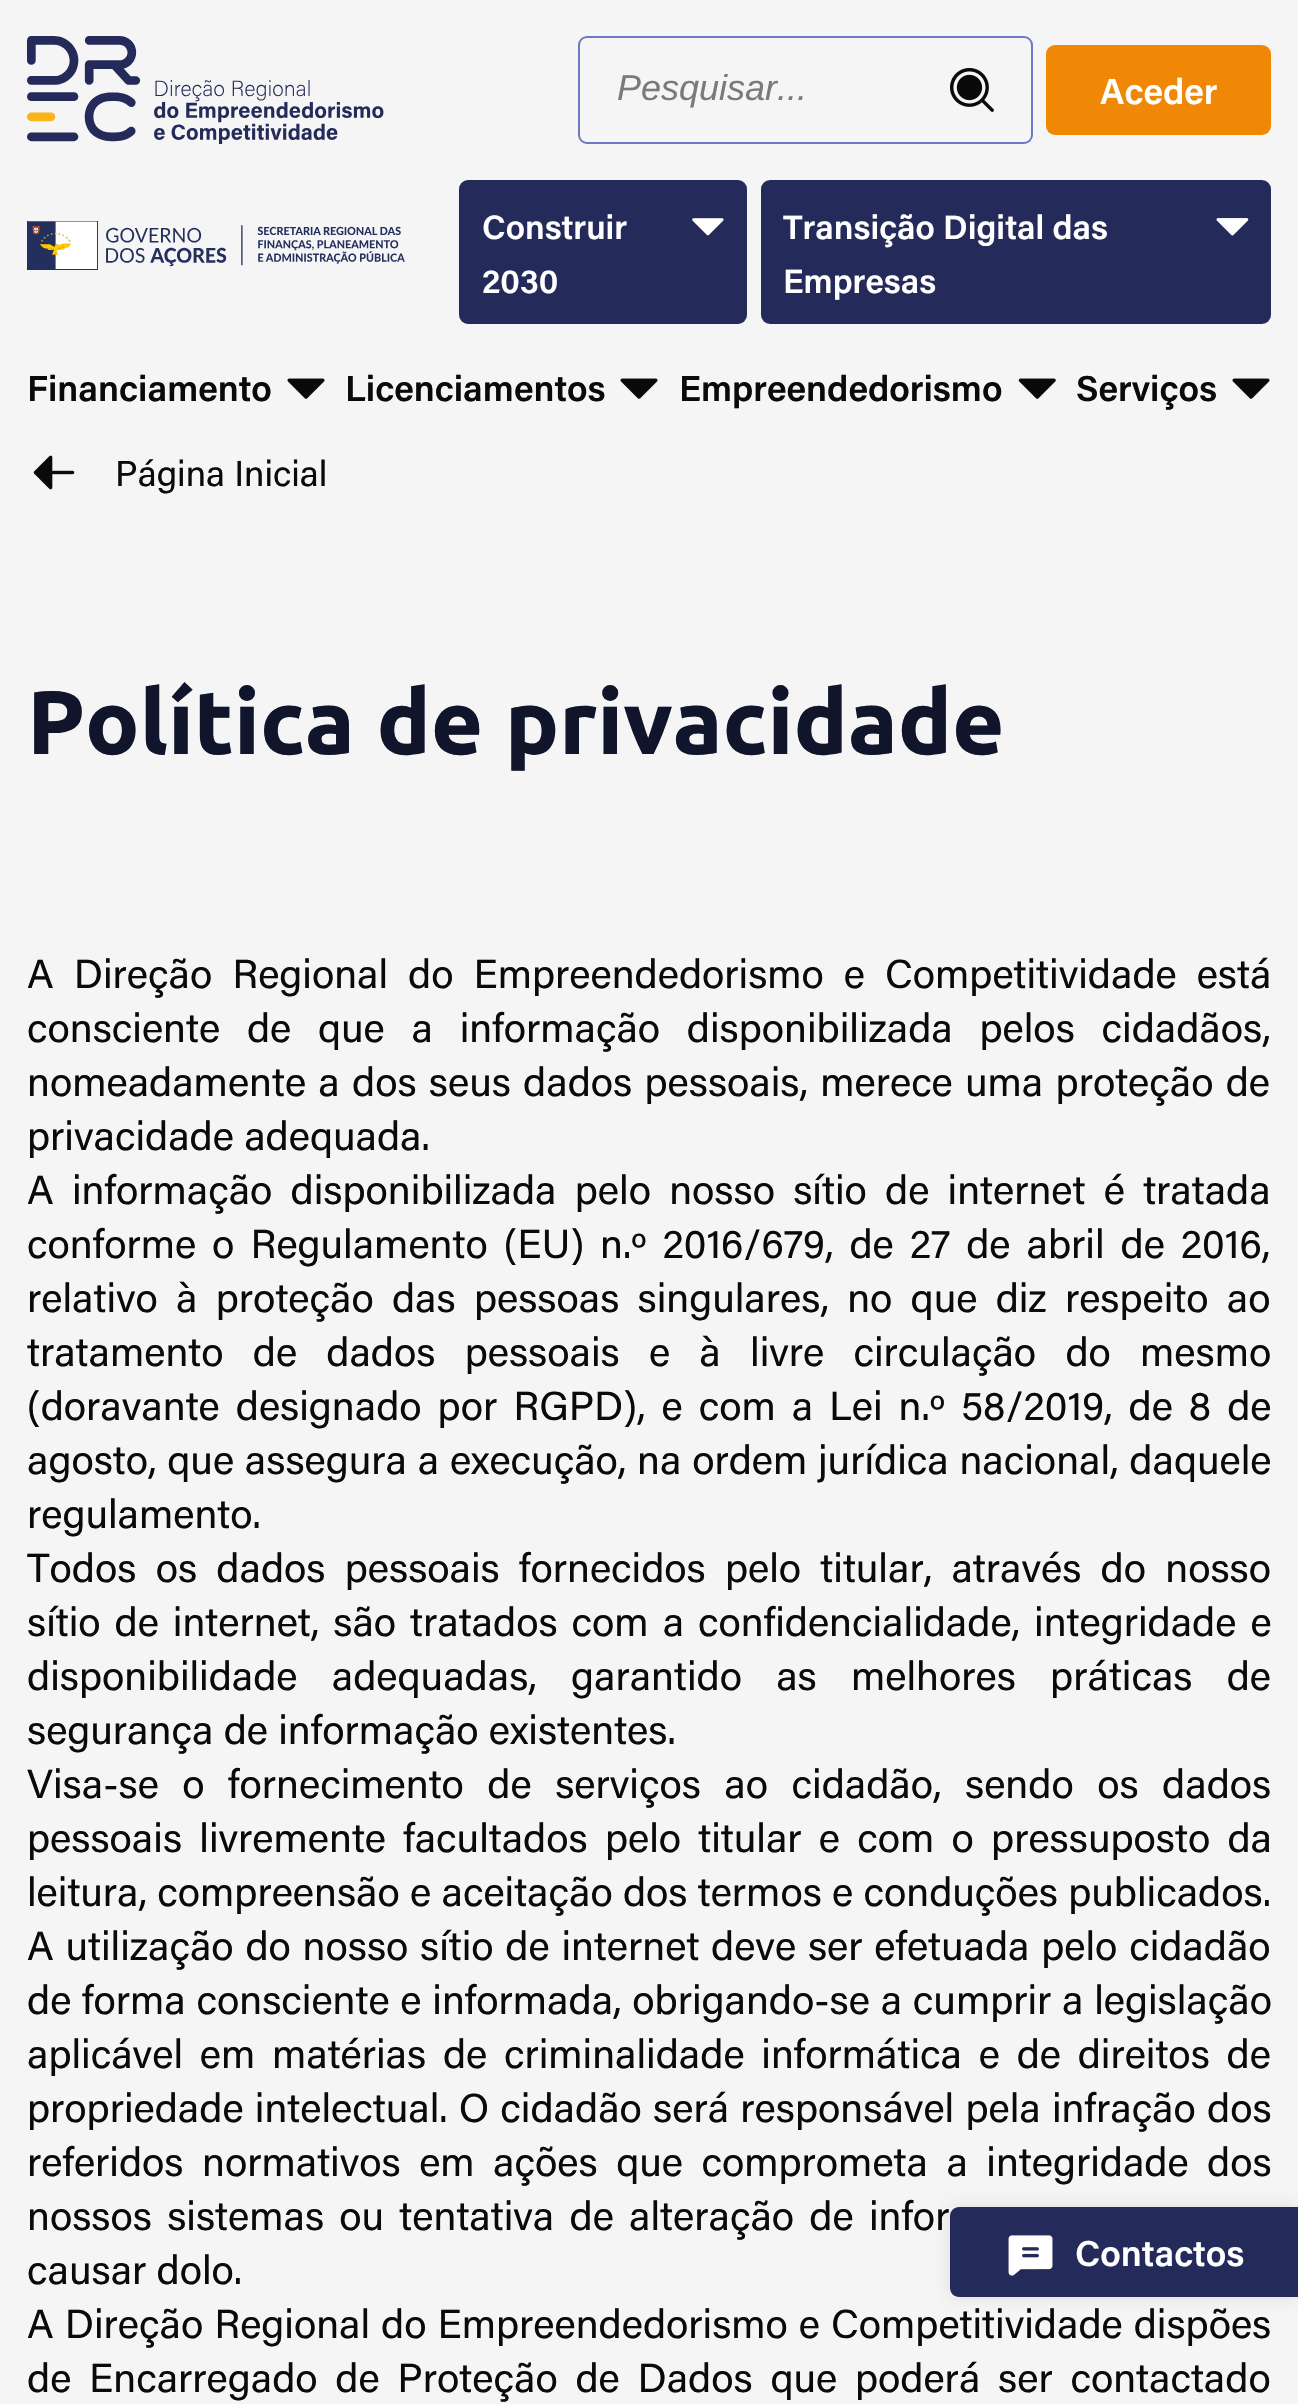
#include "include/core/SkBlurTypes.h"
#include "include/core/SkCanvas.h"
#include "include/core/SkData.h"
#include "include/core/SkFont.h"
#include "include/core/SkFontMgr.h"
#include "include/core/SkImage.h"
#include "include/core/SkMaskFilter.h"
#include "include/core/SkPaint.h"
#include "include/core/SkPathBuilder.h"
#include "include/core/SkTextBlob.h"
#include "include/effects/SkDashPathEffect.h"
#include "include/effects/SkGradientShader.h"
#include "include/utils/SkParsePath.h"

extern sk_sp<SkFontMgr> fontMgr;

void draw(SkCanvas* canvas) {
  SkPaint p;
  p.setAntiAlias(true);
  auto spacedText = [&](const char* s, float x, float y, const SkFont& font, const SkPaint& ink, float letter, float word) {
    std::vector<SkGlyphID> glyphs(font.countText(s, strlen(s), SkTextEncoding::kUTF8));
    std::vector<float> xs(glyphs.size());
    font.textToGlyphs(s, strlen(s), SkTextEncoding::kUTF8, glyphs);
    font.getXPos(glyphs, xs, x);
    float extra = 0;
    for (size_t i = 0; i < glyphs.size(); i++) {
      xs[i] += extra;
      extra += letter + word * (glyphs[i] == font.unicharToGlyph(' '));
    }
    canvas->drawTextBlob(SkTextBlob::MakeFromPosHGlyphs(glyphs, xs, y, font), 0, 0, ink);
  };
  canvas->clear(SkColorSetRGB(245, 245, 245));
  canvas->drawImageRect(SkImages::DeferredFromEncodedData(SkData::MakeFromFileName("images/1.png")), SkRect::MakeLTRB(27, 36, 384, 144), SkSamplingOptions());
  p.setStyle(SkPaint::kStroke_Style);
  p.setStrokeWidth(2);
  p.setColor(SkColorSetRGB(109, 121, 197));
  canvas->drawRoundRect(SkRect::MakeLTRB(579, 37, 1032, 143), 8, 8, p);
  canvas->drawImageRect(SkImages::DeferredFromEncodedData(SkData::MakeFromFileName("images/2.png")), SkRect::MakeLTRB(950, 68, 994, 112), SkSamplingOptions());
  p.setStyle(SkPaint::kFill_Style);
  p.setColor(SkColorSetRGB(241, 136, 5));
  canvas->drawRoundRect(SkRect::MakeLTRB(1046, 45, 1271, 135), 9, 9, p);
  canvas->drawImageRect(SkImages::DeferredFromEncodedData(SkData::MakeFromFileName("images/3.png")), SkRect::MakeLTRB(27, 221, 405, 270), SkSamplingOptions());
  p.setColor(SkColorSetRGB(36, 43, 90));
  canvas->drawRoundRect(SkRect::MakeLTRB(459, 180, 747, 324), 9, 9, p);
  canvas->drawImageRect(SkImages::DeferredFromEncodedData(SkData::MakeFromFileName("images/4.png")), SkRect::MakeLTRB(692, 218, 724, 236), SkSamplingOptions());
  canvas->drawRoundRect(SkRect::MakeLTRB(761, 180, 1271, 324), 9, 9, p);
  canvas->drawImageRect(SkImages::DeferredFromEncodedData(SkData::MakeFromFileName("images/5.png")), SkRect::MakeLTRB(1216, 218, 1249, 236), SkSamplingOptions());
  canvas->drawImageRect(SkImages::DeferredFromEncodedData(SkData::MakeFromFileName("images/6.png")), SkRect::MakeLTRB(287, 378, 325, 399), SkSamplingOptions());
  canvas->drawImageRect(SkImages::DeferredFromEncodedData(SkData::MakeFromFileName("images/6.png")), SkRect::MakeLTRB(620, 378, 658, 399), SkSamplingOptions());
  canvas->drawImageRect(SkImages::DeferredFromEncodedData(SkData::MakeFromFileName("images/7.png")), SkRect::MakeLTRB(1018, 378, 1056, 399), SkSamplingOptions());
  canvas->drawImageRect(SkImages::DeferredFromEncodedData(SkData::MakeFromFileName("images/6.png")), SkRect::MakeLTRB(1232, 378, 1270, 399), SkSamplingOptions());
  canvas->drawImageRect(SkImages::DeferredFromEncodedData(SkData::MakeFromFileName("images/8.png")), SkRect::MakeLTRB(33, 455, 75, 490), SkSamplingOptions());
  canvas->save();
  canvas->clipPath(SkPathBuilder(SkPathFillType::kEvenOdd).moveTo(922, 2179).lineTo(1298, 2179).lineTo(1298, 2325).lineTo(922, 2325).close().moveTo(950, 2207).lineTo(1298, 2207).lineTo(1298, 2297).lineTo(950, 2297).close().detach(), true);
  p.setColor(SkColorSetARGB(26, 10, 10, 10));
  p.setMaskFilter(SkMaskFilter::MakeBlur(kNormal_SkBlurStyle, 9));
  canvas->drawRect(SkRect::MakeLTRB(950, 2207, 1298, 2297), p);
  p.setMaskFilter(nullptr);
  canvas->restore();
  p.setColor(SkColorSetRGB(36, 43, 90));
  canvas->drawPath(SkPathBuilder().moveTo(959, 2207).lineTo(1298, 2207).lineTo(1298, 2297).lineTo(959, 2297).cubicTo(954, 2297, 950, 2293, 950, 2288).lineTo(950, 2216).cubicTo(950, 2211, 954, 2207, 959, 2207).close().detach(), p);
  canvas->drawImageRect(SkImages::DeferredFromEncodedData(SkData::MakeFromFileName("images/9.png")), SkRect::MakeLTRB(1008, 2235, 1053, 2276), SkSamplingOptions());
  SkFont font1(fontMgr->matchFamilyStyle("Liberation Sans", SkFontStyle::Italic()), 36);
  font1.setSubpixel(true);
  p.setColor(SkColorSetRGB(122, 122, 122));
  canvas->drawString("Pesquisar...", 617, 100, font1, p);
  SkFont font2(fontMgr->matchFamilyStyle("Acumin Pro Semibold", SkFontStyle(600, SkFontStyle::kNormal_Width, SkFontStyle::kUpright_Slant)), 36);
  font2.setSubpixel(true);
  p.setColor(SK_ColorWHITE);
  canvas->drawString("Aceder", 1100, 104, font2, p);
  SkFont font3(fontMgr->matchFamilyStyle("Acumin Pro Semibold", SkFontStyle(600, SkFontStyle::kNormal_Width, SkFontStyle::kUpright_Slant)), 33.75f);
  font3.setSubpixel(true);
  canvas->drawString("Construir", 482, 239, font3, p);
  canvas->drawString("2030", 482, 293, font3, p);
  canvas->drawString("Transição Digital das", 783, 239, font3, p);
  canvas->drawString("Empresas", 783, 293, font3, p);
  p.setColor(SkColorSetRGB(10, 10, 10));
  canvas->drawString("Financiamento", 27, 401, font2, p);
  canvas->drawString("Licenciamentos", 345, 401, font2, p);
  canvas->drawString("Empreendedorismo", 679, 401, font2, p);
  canvas->drawString("Serviços", 1076, 401, font2, p);
  SkFont font4(fontMgr->matchFamilyStyle("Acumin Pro", SkFontStyle::Normal()), 36);
  font4.setSubpixel(true);
  canvas->drawString("Página Inicial", 115, 486, font4, p);
  SkFont font5(fontMgr->matchFamilyStyle("Ubuntu", SkFontStyle::Bold()), 90);
  font5.setSubpixel(true);
  p.setColor(SkColorSetRGB(17, 21, 44));
  canvas->drawString("Política de privacidade", 27, 754, font5, p);
  SkFont font6(fontMgr->matchFamilyStyle("Acumin Pro", SkFontStyle::Normal()), 40.5f);
  font6.setSubpixel(true);
  p.setColor(SkColorSetRGB(10, 10, 10));
  spacedText("A Direção Regional do Empreendedorismo e Competitividade está", 27, 988, font6, p, 0, 9.75f);
  spacedText("consciente de que a informação disponibilizada pelos cidadãos,", 27, 1042, font6, p, 0, 16.5f);
  spacedText("nomeadamente a dos seus dados pessoais, merece uma proteção de", 27, 1096, font6, p, 0, 2);
  canvas->drawString("privacidade adequada.", 27, 1150, font6, p);
  spacedText("A informação disponibilizada pelo nosso sítio de internet é tratada", 27, 1204, font6, p, 0, 8);
  spacedText("conforme o Regulamento (EU) n.º 2016/679, de 27 de abril de 2016,", 27, 1258, font6, p, 0, 5.75f);
  spacedText("relativo à proteção das pessoas singulares, no que diz respeito ao", 27, 1312, font6, p, 0, 8);
  spacedText("tratamento de dados pessoais e à livre circulação do mesmo", 27, 1366, font6, p, 0, 19);
  spacedText("(doravante designado por RGPD), e com a Lei n.º 58/2019, de 8 de", 27, 1420, font6, p, 0, 5.75f);
  spacedText("agosto, que assegura a execução, na ordem jurídica nacional, daquele", 27, 1474, font6, p, 0, 0.5f);
  canvas->drawString("regulamento.", 27, 1528, font6, p);
  spacedText("Todos os dados pessoais fornecidos pelo titular, através do nosso", 27, 1582, font6, p, 0, 9);
  spacedText("sítio de internet, são tratados com a confidencialidade, integridade e", 27, 1636, font6, p, 0, 3.75f);
  spacedText("disponibilidade adequadas, garantido as melhores práticas de", 27, 1690, font6, p, 0, 24);
  canvas->drawString("segurança de informação existentes.", 27, 1744, font6, p);
  spacedText("Visa-se o fornecimento de serviços ao cidadão, sendo os dados", 27, 1798, font6, p, 0, 13.25f);
  spacedText("pessoais livremente facultados pelo titular e com o pressuposto da", 27, 1852, font6, p, 0, 7);
  canvas->drawString("leitura, compreensão e aceitação dos termos e conduções publicados.", 27, 1906, font6, p);
  spacedText("A utilização do nosso sítio de internet deve ser efetuada pelo cidadão", 27, 1960, font6, p, 0, 1.5f);
  spacedText("de forma consciente e informada, obrigando-se a cumprir a legislação", 27, 2014, font6, p, 0, 0.5f);
  spacedText("aplicável em matérias de criminalidade informática e de direitos de", 27, 2068, font6, p, 0, 6.5f);
  spacedText("propriedade intelectual. O cidadão será responsável pela infração dos", 27, 2122, font6, p, 0, 1);
  spacedText("referidos normativos em ações que comprometa a integridade dos", 27, 2176, font6, p, 0, 8.25f);
  spacedText("nossos sistemas ou tentativa de alteração de infor", 27, 2230, font6, p, 0, 5);
  canvas->drawString("causar dolo.", 27, 2284, font6, p);
  spacedText("A Direção Regional do Empreendedorismo e Competitividade dispões", 27, 2338, font6, p, 0, 0.75f);
  spacedText("de Encarregado de Proteção de Dados que poderá ser contactado", 27, 2392, font6, p, 0, 7.5f);
  p.setColor(SK_ColorWHITE);
  canvas->drawString("Contactos", 1075, 2266, font2, p);
}
